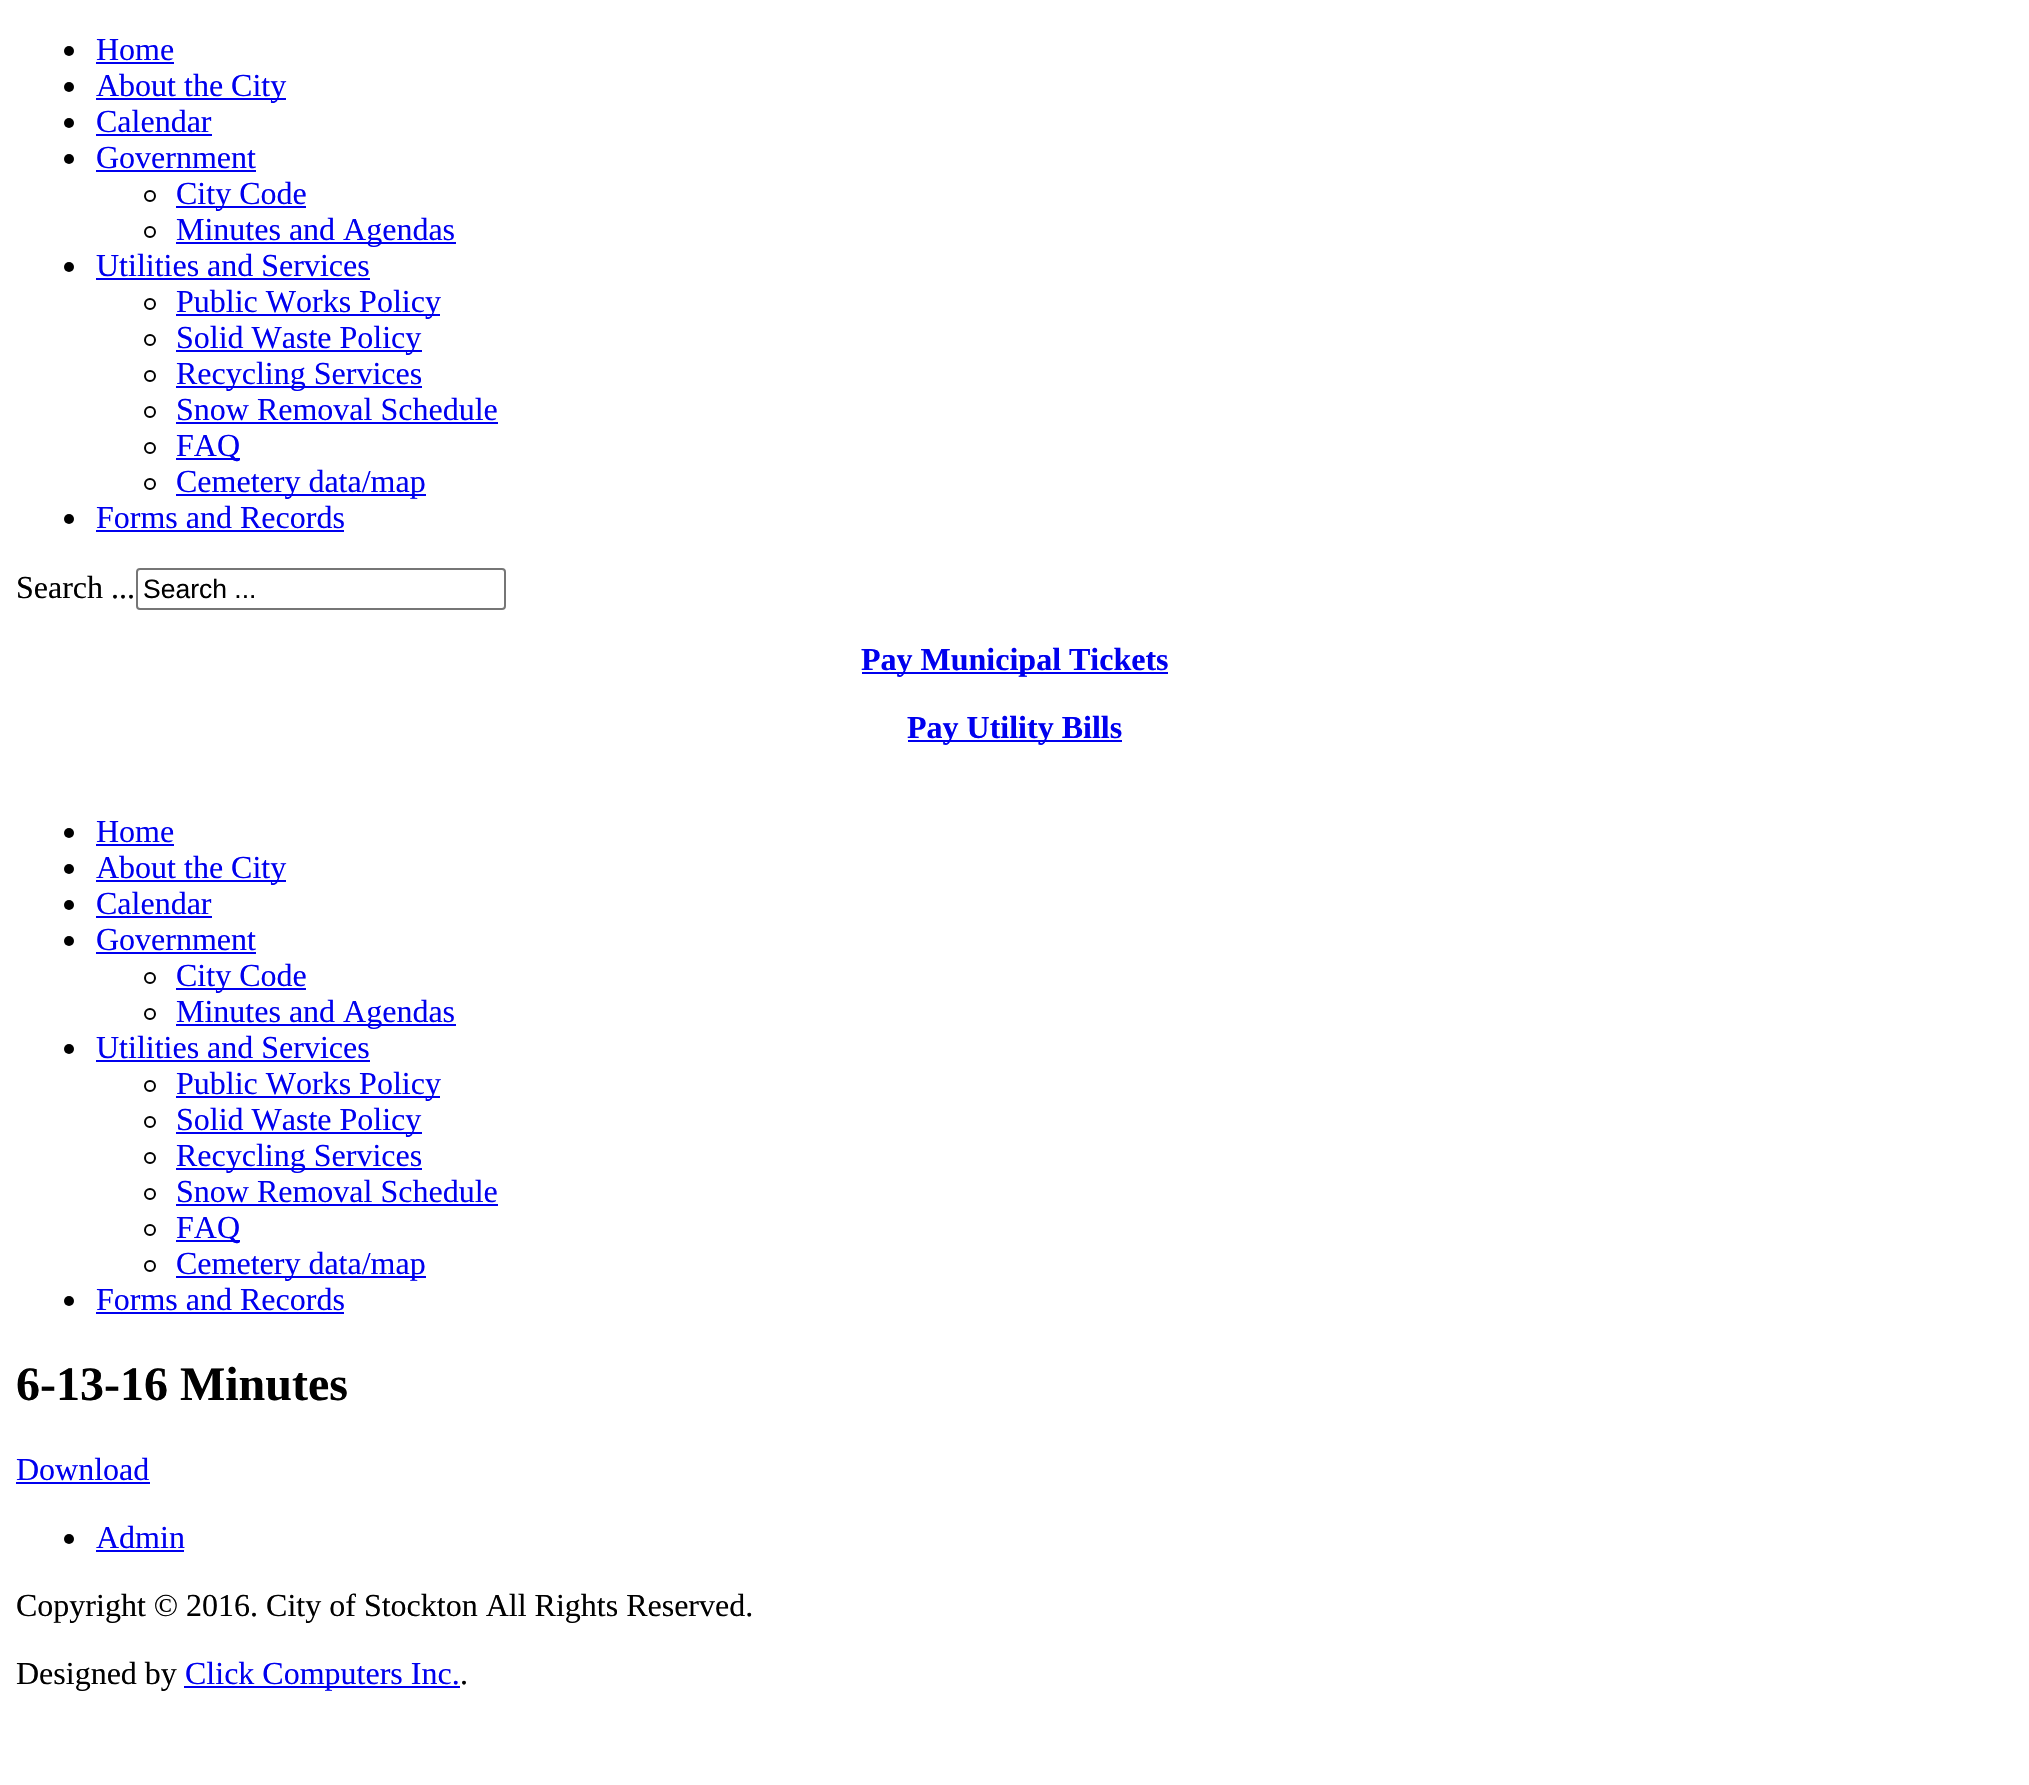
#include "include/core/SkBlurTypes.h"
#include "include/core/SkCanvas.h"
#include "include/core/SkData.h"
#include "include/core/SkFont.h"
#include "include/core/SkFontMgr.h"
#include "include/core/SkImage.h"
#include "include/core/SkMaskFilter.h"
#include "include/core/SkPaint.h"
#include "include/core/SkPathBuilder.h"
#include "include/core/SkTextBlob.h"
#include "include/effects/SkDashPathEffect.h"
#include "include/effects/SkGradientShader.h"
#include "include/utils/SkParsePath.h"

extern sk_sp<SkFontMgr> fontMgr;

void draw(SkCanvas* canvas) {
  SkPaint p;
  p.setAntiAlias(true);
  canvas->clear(SK_ColorWHITE);
  p.setColor(SK_ColorBLACK);
  canvas->drawCircle(69, 51, 5, p);
  p.setColor(SkColorSetRGB(0, 0, 238));
  canvas->drawRect(SkRect::MakeLTRB(96, 62, 174, 64), p);
  p.setColor(SK_ColorBLACK);
  canvas->drawCircle(69, 87, 5, p);
  p.setColor(SkColorSetRGB(0, 0, 238));
  canvas->drawRect(SkRect::MakeLTRB(96, 98, 286, 100), p);
  p.setColor(SK_ColorBLACK);
  canvas->drawCircle(69, 123, 5, p);
  p.setColor(SkColorSetRGB(0, 0, 238));
  canvas->drawRect(SkRect::MakeLTRB(96, 134, 212, 136), p);
  p.setColor(SK_ColorBLACK);
  canvas->drawCircle(69, 159, 5, p);
  p.setColor(SkColorSetRGB(0, 0, 238));
  canvas->drawRect(SkRect::MakeLTRB(96, 170, 256, 172), p);
  p.setStyle(SkPaint::kStroke_Style);
  p.setStrokeWidth(2);
  p.setColor(SK_ColorBLACK);
  canvas->drawCircle(150, 196, 5, p);
  p.setStyle(SkPaint::kFill_Style);
  p.setColor(SkColorSetRGB(0, 0, 238));
  canvas->drawRect(SkRect::MakeLTRB(176, 206, 306, 208), p);
  p.setStyle(SkPaint::kStroke_Style);
  p.setColor(SK_ColorBLACK);
  canvas->drawCircle(150, 232, 5, p);
  p.setStyle(SkPaint::kFill_Style);
  p.setColor(SkColorSetRGB(0, 0, 238));
  canvas->drawRect(SkRect::MakeLTRB(176, 242, 456, 244), p);
  p.setColor(SK_ColorBLACK);
  canvas->drawCircle(69, 267, 5, p);
  p.setColor(SkColorSetRGB(0, 0, 238));
  canvas->drawRect(SkRect::MakeLTRB(96, 278, 370, 280), p);
  p.setStyle(SkPaint::kStroke_Style);
  p.setColor(SK_ColorBLACK);
  canvas->drawCircle(150, 304, 5, p);
  p.setStyle(SkPaint::kFill_Style);
  p.setColor(SkColorSetRGB(0, 0, 238));
  canvas->drawRect(SkRect::MakeLTRB(176, 314, 440, 316), p);
  p.setStyle(SkPaint::kStroke_Style);
  p.setColor(SK_ColorBLACK);
  canvas->drawCircle(150, 340, 5, p);
  p.setStyle(SkPaint::kFill_Style);
  p.setColor(SkColorSetRGB(0, 0, 238));
  canvas->drawRect(SkRect::MakeLTRB(176, 350, 422, 352), p);
  p.setStyle(SkPaint::kStroke_Style);
  p.setColor(SK_ColorBLACK);
  canvas->drawCircle(150, 376, 5, p);
  p.setStyle(SkPaint::kFill_Style);
  p.setColor(SkColorSetRGB(0, 0, 238));
  canvas->drawRect(SkRect::MakeLTRB(176, 386, 422, 388), p);
  p.setStyle(SkPaint::kStroke_Style);
  p.setColor(SK_ColorBLACK);
  canvas->drawCircle(150, 412, 5, p);
  p.setStyle(SkPaint::kFill_Style);
  p.setColor(SkColorSetRGB(0, 0, 238));
  canvas->drawRect(SkRect::MakeLTRB(176, 422, 498, 424), p);
  p.setStyle(SkPaint::kStroke_Style);
  p.setColor(SK_ColorBLACK);
  canvas->drawCircle(150, 448, 5, p);
  p.setStyle(SkPaint::kFill_Style);
  p.setColor(SkColorSetRGB(0, 0, 238));
  canvas->drawRect(SkRect::MakeLTRB(176, 458, 240, 460), p);
  p.setStyle(SkPaint::kStroke_Style);
  p.setColor(SK_ColorBLACK);
  canvas->drawCircle(150, 484, 5, p);
  p.setStyle(SkPaint::kFill_Style);
  p.setColor(SkColorSetRGB(0, 0, 238));
  canvas->drawRect(SkRect::MakeLTRB(176, 494, 426, 496), p);
  p.setColor(SK_ColorBLACK);
  canvas->drawCircle(69, 519, 5, p);
  p.setColor(SkColorSetRGB(0, 0, 238));
  canvas->drawRect(SkRect::MakeLTRB(96, 530, 344, 532), p);
  p.setStyle(SkPaint::kStroke_Style);
  p.setColor(SkColorSetRGB(118, 118, 118));
  canvas->drawRoundRect(SkRect::MakeLTRB(137, 569, 505, 609), 3, 3, p);
  p.setStyle(SkPaint::kFill_Style);
  p.setColor(SkColorSetRGB(0, 0, 238));
  canvas->drawRect(SkRect::MakeLTRB(862, 672, 1168, 674), p);
  canvas->drawRect(SkRect::MakeLTRB(908, 740, 1122, 742), p);
  p.setColor(SK_ColorBLACK);
  canvas->drawCircle(69, 833, 5, p);
  p.setColor(SkColorSetRGB(0, 0, 238));
  canvas->drawRect(SkRect::MakeLTRB(96, 844, 174, 846), p);
  p.setColor(SK_ColorBLACK);
  canvas->drawCircle(69, 869, 5, p);
  p.setColor(SkColorSetRGB(0, 0, 238));
  canvas->drawRect(SkRect::MakeLTRB(96, 880, 286, 882), p);
  p.setColor(SK_ColorBLACK);
  canvas->drawCircle(69, 905, 5, p);
  p.setColor(SkColorSetRGB(0, 0, 238));
  canvas->drawRect(SkRect::MakeLTRB(96, 916, 212, 918), p);
  p.setColor(SK_ColorBLACK);
  canvas->drawCircle(69, 941, 5, p);
  p.setColor(SkColorSetRGB(0, 0, 238));
  canvas->drawRect(SkRect::MakeLTRB(96, 952, 256, 954), p);
  p.setStyle(SkPaint::kStroke_Style);
  p.setColor(SK_ColorBLACK);
  canvas->drawCircle(150, 978, 5, p);
  p.setStyle(SkPaint::kFill_Style);
  p.setColor(SkColorSetRGB(0, 0, 238));
  canvas->drawRect(SkRect::MakeLTRB(176, 988, 306, 990), p);
  p.setStyle(SkPaint::kStroke_Style);
  p.setColor(SK_ColorBLACK);
  canvas->drawCircle(150, 1014, 5, p);
  p.setStyle(SkPaint::kFill_Style);
  p.setColor(SkColorSetRGB(0, 0, 238));
  canvas->drawRect(SkRect::MakeLTRB(176, 1024, 456, 1026), p);
  p.setColor(SK_ColorBLACK);
  canvas->drawCircle(69, 1049, 5, p);
  p.setColor(SkColorSetRGB(0, 0, 238));
  canvas->drawRect(SkRect::MakeLTRB(96, 1060, 370, 1062), p);
  p.setStyle(SkPaint::kStroke_Style);
  p.setColor(SK_ColorBLACK);
  canvas->drawCircle(150, 1086, 5, p);
  p.setStyle(SkPaint::kFill_Style);
  p.setColor(SkColorSetRGB(0, 0, 238));
  canvas->drawRect(SkRect::MakeLTRB(176, 1096, 440, 1098), p);
  p.setStyle(SkPaint::kStroke_Style);
  p.setColor(SK_ColorBLACK);
  canvas->drawCircle(150, 1122, 5, p);
  p.setStyle(SkPaint::kFill_Style);
  p.setColor(SkColorSetRGB(0, 0, 238));
  canvas->drawRect(SkRect::MakeLTRB(176, 1132, 422, 1134), p);
  p.setStyle(SkPaint::kStroke_Style);
  p.setColor(SK_ColorBLACK);
  canvas->drawCircle(150, 1158, 5, p);
  p.setStyle(SkPaint::kFill_Style);
  p.setColor(SkColorSetRGB(0, 0, 238));
  canvas->drawRect(SkRect::MakeLTRB(176, 1168, 422, 1170), p);
  p.setStyle(SkPaint::kStroke_Style);
  p.setColor(SK_ColorBLACK);
  canvas->drawCircle(150, 1194, 5, p);
  p.setStyle(SkPaint::kFill_Style);
  p.setColor(SkColorSetRGB(0, 0, 238));
  canvas->drawRect(SkRect::MakeLTRB(176, 1204, 498, 1206), p);
  p.setStyle(SkPaint::kStroke_Style);
  p.setColor(SK_ColorBLACK);
  canvas->drawCircle(150, 1230, 5, p);
  p.setStyle(SkPaint::kFill_Style);
  p.setColor(SkColorSetRGB(0, 0, 238));
  canvas->drawRect(SkRect::MakeLTRB(176, 1240, 240, 1242), p);
  p.setStyle(SkPaint::kStroke_Style);
  p.setColor(SK_ColorBLACK);
  canvas->drawCircle(150, 1266, 5, p);
  p.setStyle(SkPaint::kFill_Style);
  p.setColor(SkColorSetRGB(0, 0, 238));
  canvas->drawRect(SkRect::MakeLTRB(176, 1276, 426, 1278), p);
  p.setColor(SK_ColorBLACK);
  canvas->drawCircle(69, 1301, 5, p);
  p.setColor(SkColorSetRGB(0, 0, 238));
  canvas->drawRect(SkRect::MakeLTRB(96, 1312, 344, 1314), p);
  canvas->drawRect(SkRect::MakeLTRB(16, 1482, 150, 1484), p);
  p.setColor(SK_ColorBLACK);
  canvas->drawCircle(69, 1539, 5, p);
  p.setColor(SkColorSetRGB(0, 0, 238));
  canvas->drawRect(SkRect::MakeLTRB(96, 1550, 184, 1552), p);
  canvas->drawRect(SkRect::MakeLTRB(184, 1686, 460, 1688), p);
  SkFont font1(fontMgr->matchFamilyStyle("Liberation Serif", SkFontStyle::Normal()), 32);
  font1.setSubpixel(true);
  canvas->drawString("Home", 96, 60, font1, p);
  canvas->drawString("About the City", 96, 96, font1, p);
  canvas->drawString("Calendar", 96, 132, font1, p);
  canvas->drawString("Government", 96, 168, font1, p);
  canvas->drawString("City Code", 176, 204, font1, p);
  canvas->drawString("Minutes and Agendas", 176, 240, font1, p);
  canvas->drawString("Utilities and Services", 96, 276, font1, p);
  canvas->drawString("Public Works Policy", 176, 312, font1, p);
  canvas->drawString("Solid Waste Policy", 176, 348, font1, p);
  canvas->drawString("Recycling Services", 176, 384, font1, p);
  canvas->drawString("Snow Removal Schedule", 176, 420, font1, p);
  canvas->drawString("FAQ", 176, 456, font1, p);
  canvas->drawString("Cemetery data/map", 176, 492, font1, p);
  canvas->drawString("Forms and Records", 96, 528, font1, p);
  p.setColor(SK_ColorBLACK);
  canvas->drawString("Search ...", 16, 598, font1, p);
  SkFont font2(fontMgr->matchFamilyStyle("Liberation Sans", SkFontStyle::Normal()), 26.5f);
  font2.setSubpixel(true);
  canvas->drawString("Search ...", 143, 598, font2, p);
  SkFont font3(fontMgr->matchFamilyStyle("Liberation Serif", SkFontStyle::Bold()), 32);
  font3.setSubpixel(true);
  p.setColor(SkColorSetRGB(0, 0, 238));
  canvas->drawString("Pay Municipal Tickets", 861, 670, font3, p);
  canvas->drawString("Pay Utility Bills", 907, 738, font3, p);
  canvas->drawString("Home", 96, 842, font1, p);
  canvas->drawString("About the City", 96, 878, font1, p);
  canvas->drawString("Calendar", 96, 914, font1, p);
  canvas->drawString("Government", 96, 950, font1, p);
  canvas->drawString("City Code", 176, 986, font1, p);
  canvas->drawString("Minutes and Agendas", 176, 1022, font1, p);
  canvas->drawString("Utilities and Services", 96, 1058, font1, p);
  canvas->drawString("Public Works Policy", 176, 1094, font1, p);
  canvas->drawString("Solid Waste Policy", 176, 1130, font1, p);
  canvas->drawString("Recycling Services", 176, 1166, font1, p);
  canvas->drawString("Snow Removal Schedule", 176, 1202, font1, p);
  canvas->drawString("FAQ", 176, 1238, font1, p);
  canvas->drawString("Cemetery data/map", 176, 1274, font1, p);
  canvas->drawString("Forms and Records", 96, 1310, font1, p);
  SkFont font4(fontMgr->matchFamilyStyle("Liberation Serif", SkFontStyle::Bold()), 48);
  font4.setSubpixel(true);
  p.setColor(SK_ColorBLACK);
  canvas->drawString("6-13-16 Minutes", 16, 1400, font4, p);
  p.setColor(SkColorSetRGB(0, 0, 238));
  canvas->drawString("Download", 16, 1480, font1, p);
  canvas->drawString("Admin", 96, 1548, font1, p);
  p.setColor(SK_ColorBLACK);
  canvas->drawString("Copyright © 2016. City of Stockton All Rights Reserved.", 16, 1616, font1, p);
  canvas->drawString("Designed by", 16, 1684, font1, p);
  p.setColor(SkColorSetRGB(0, 0, 238));
  canvas->drawString("Click Computers Inc.", 185, 1684, font1, p);
  p.setColor(SK_ColorBLACK);
  canvas->drawString(".", 460, 1684, font1, p);
}
